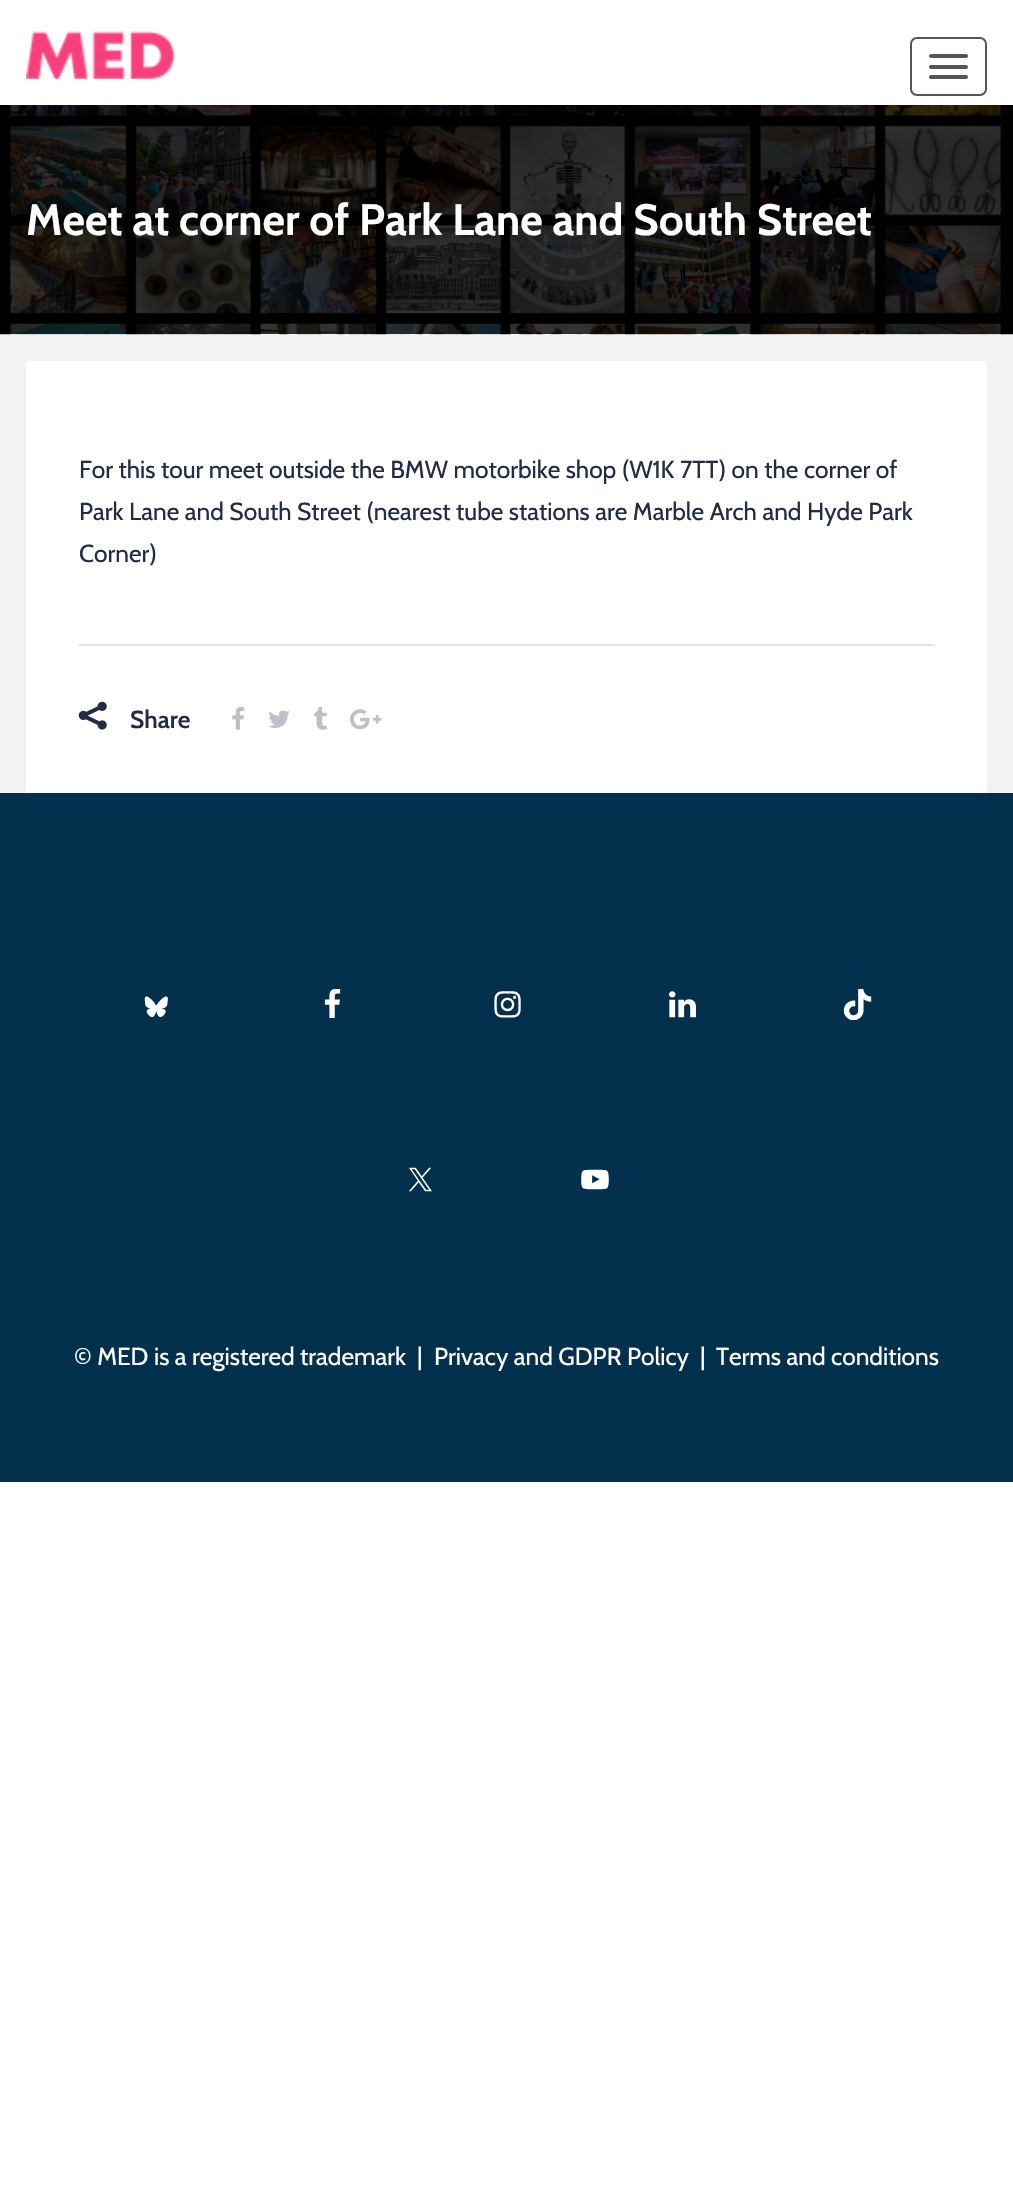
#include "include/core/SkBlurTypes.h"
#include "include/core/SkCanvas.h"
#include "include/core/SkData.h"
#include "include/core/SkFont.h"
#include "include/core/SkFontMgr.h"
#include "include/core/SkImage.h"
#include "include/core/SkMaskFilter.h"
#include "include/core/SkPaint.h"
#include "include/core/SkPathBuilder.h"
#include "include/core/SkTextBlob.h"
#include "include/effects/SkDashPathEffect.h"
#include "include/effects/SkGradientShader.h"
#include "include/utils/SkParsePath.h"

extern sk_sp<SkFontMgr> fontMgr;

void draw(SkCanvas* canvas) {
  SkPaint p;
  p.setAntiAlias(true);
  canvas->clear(SK_ColorWHITE);
  canvas->drawImageRect(SkImages::DeferredFromEncodedData(SkData::MakeFromFileName("images/1.png")), SkRect::MakeLTRB(26, 31, 175, 79), SkSamplingOptions());
  p.setStyle(SkPaint::kStroke_Style);
  p.setStrokeWidth(2);
  p.setColor(SkColorSetRGB(85, 85, 85));
  canvas->drawRoundRect(SkRect::MakeLTRB(911, 38, 986, 95), 6, 6, p);
  p.setStyle(SkPaint::kFill_Style);
  canvas->drawRoundRect(SkRect::MakeLTRB(929, 54, 968, 58), 2, 2, p);
  canvas->drawRoundRect(SkRect::MakeLTRB(929, 65, 968, 69), 2, 2, p);
  canvas->drawRoundRect(SkRect::MakeLTRB(929, 75, 968, 79), 2, 2, p);
  p.setColor(SkColorSetRGB(242, 242, 242));
  canvas->drawRect(SkRect::MakeLTRB(0, 334, 1013, 793), p);
  canvas->drawImageRect(SkImages::DeferredFromEncodedData(SkData::MakeFromFileName("images/2.png")), SkRect::MakeLTRB(0, 105, 1013, 335), SkSamplingOptions());
  p.setColor(SK_ColorWHITE);
  canvas->drawRect(SkRect::MakeLTRB(26, 361, 987, 793), p);
  p.setColor(SkColorSetRGB(227, 227, 227));
  canvas->drawRect(SkRect::MakeLTRB(79, 644, 935, 646), p);
  canvas->drawImageRect(SkImages::DeferredFromEncodedData(SkData::MakeFromFileName("images/3.png")), SkRect::MakeLTRB(78, 701, 107, 730), SkSamplingOptions());
  canvas->drawImageRect(SkImages::DeferredFromEncodedData(SkData::MakeFromFileName("images/4.png")), SkRect::MakeLTRB(232, 707, 245, 730), SkSamplingOptions());
  canvas->drawImageRect(SkImages::DeferredFromEncodedData(SkData::MakeFromFileName("images/5.png")), SkRect::MakeLTRB(268, 710, 290, 728), SkSamplingOptions());
  canvas->drawImageRect(SkImages::DeferredFromEncodedData(SkData::MakeFromFileName("images/6.png")), SkRect::MakeLTRB(314, 707, 328, 730), SkSamplingOptions());
  canvas->drawImageRect(SkImages::DeferredFromEncodedData(SkData::MakeFromFileName("images/7.png")), SkRect::MakeLTRB(350, 709, 382, 730), SkSamplingOptions());
  p.setColor(SkColorSetRGB(0, 48, 75));
  canvas->drawRect(SkRect::MakeLTRB(0, 793, 1013, 1482), p);
  canvas->drawImageRect(SkImages::DeferredFromEncodedData(SkData::MakeFromFileName("images/8.png")), SkRect::MakeLTRB(144, 996, 168, 1017), SkSamplingOptions());
  canvas->drawImageRect(SkImages::DeferredFromEncodedData(SkData::MakeFromFileName("images/9.png")), SkRect::MakeLTRB(324, 989, 341, 1018), SkSamplingOptions());
  canvas->drawImageRect(SkImages::DeferredFromEncodedData(SkData::MakeFromFileName("images/10.png")), SkRect::MakeLTRB(494, 991, 521, 1018), SkSamplingOptions());
  canvas->drawImageRect(SkImages::DeferredFromEncodedData(SkData::MakeFromFileName("images/11.png")), SkRect::MakeLTRB(669, 991, 696, 1018), SkSamplingOptions());
  canvas->drawImageRect(SkImages::DeferredFromEncodedData(SkData::MakeFromFileName("images/12.png")), SkRect::MakeLTRB(843, 989, 872, 1020), SkSamplingOptions());
  canvas->drawImageRect(SkImages::DeferredFromEncodedData(SkData::MakeFromFileName("images/13.png")), SkRect::MakeLTRB(409, 1167, 432, 1192), SkSamplingOptions());
  canvas->drawImageRect(SkImages::DeferredFromEncodedData(SkData::MakeFromFileName("images/14.png")), SkRect::MakeLTRB(581, 1169, 609, 1190), SkSamplingOptions());
  SkFont font1(fontMgr->matchFamilyStyle("Cabin", SkFontStyle::Bold()), 43.75f);
  font1.setSubpixel(true);
  p.setColor(SK_ColorWHITE);
  canvas->drawString("Meet at corner of Park Lane and South Street", 26, 235, font1, p);
  SkFont font2(fontMgr->matchFamilyStyle("Cabin", SkFontStyle::Normal()), 24.5f);
  font2.setSubpixel(true);
  p.setColor(SkColorSetRGB(36, 43, 70));
  canvas->drawString("For this tour meet outside the BMW motorbike shop (W1K 7TT) on the corner of", 79, 478, font2, p);
  canvas->drawString("Park Lane and South Street (nearest tube stations are Marble Arch and Hyde Park", 79, 520, font2, p);
  canvas->drawString("Corner)", 79, 562, font2, p);
  SkFont font3(fontMgr->matchFamilyStyle("Cabin", SkFontStyle(600, SkFontStyle::kNormal_Width, SkFontStyle::kUpright_Slant)), 24.5f);
  font3.setSubpixel(true);
  canvas->drawString("Share", 130, 728, font3, p);
  p.setColor(SK_ColorWHITE);
  canvas->drawString("© MED is a registered trademark  |", 74, 1365, font2, p);
  canvas->drawString("Privacy and GDPR Policy", 434, 1365, font2, p);
  canvas->drawString("|", 700, 1365, font2, p);
  canvas->drawString("Terms and conditions", 716, 1365, font2, p);
}
